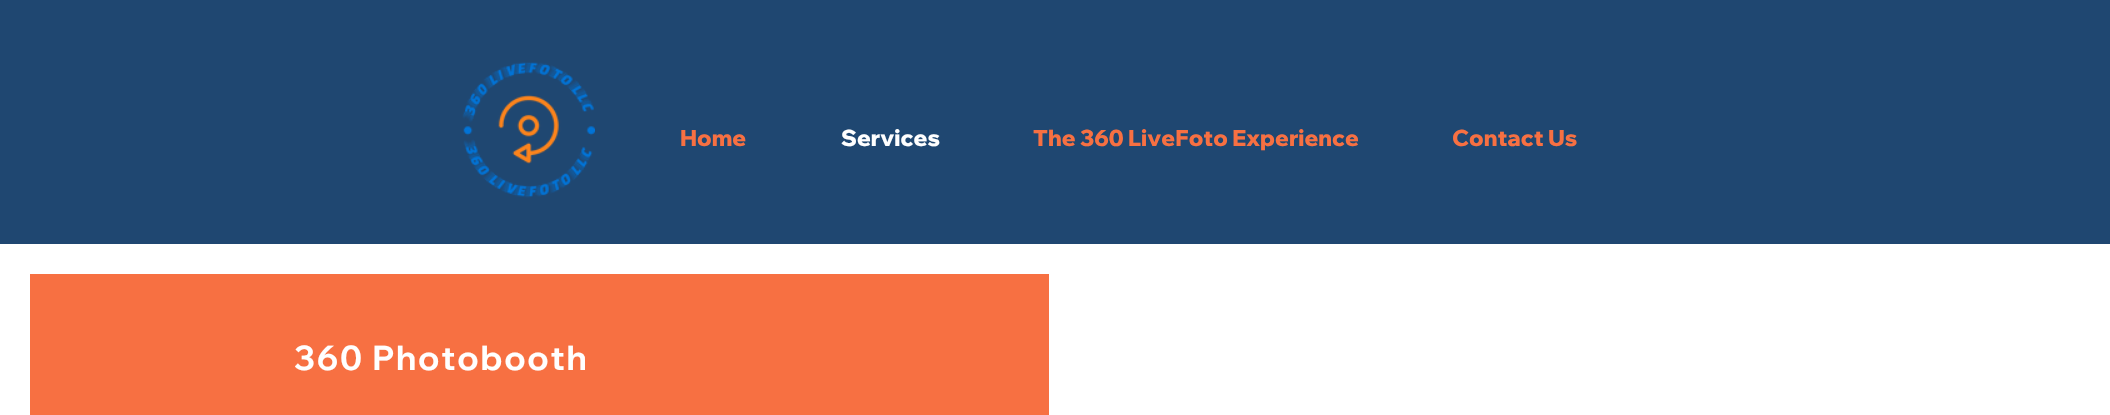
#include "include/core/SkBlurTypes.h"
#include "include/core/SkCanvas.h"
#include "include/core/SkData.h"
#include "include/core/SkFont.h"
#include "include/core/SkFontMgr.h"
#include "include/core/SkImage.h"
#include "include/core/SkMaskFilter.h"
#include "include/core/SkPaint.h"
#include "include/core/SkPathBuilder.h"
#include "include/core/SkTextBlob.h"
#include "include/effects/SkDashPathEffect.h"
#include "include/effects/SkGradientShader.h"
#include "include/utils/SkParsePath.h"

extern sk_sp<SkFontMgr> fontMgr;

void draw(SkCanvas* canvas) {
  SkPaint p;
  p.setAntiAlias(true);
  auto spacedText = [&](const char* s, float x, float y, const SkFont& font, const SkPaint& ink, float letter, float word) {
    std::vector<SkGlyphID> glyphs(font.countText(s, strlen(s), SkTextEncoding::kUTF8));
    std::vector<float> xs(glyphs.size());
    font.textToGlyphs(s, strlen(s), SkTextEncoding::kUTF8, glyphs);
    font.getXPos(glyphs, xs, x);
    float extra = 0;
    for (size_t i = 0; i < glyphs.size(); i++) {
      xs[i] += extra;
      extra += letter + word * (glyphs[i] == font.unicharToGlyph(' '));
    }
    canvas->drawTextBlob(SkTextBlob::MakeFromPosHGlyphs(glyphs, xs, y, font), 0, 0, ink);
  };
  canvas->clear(SK_ColorWHITE);
  p.setColor(SkColorSetRGB(31, 71, 113));
  canvas->drawRect(SkRect::MakeLTRB(0, 0, 2110, 244), p);
  canvas->drawImageRect(SkImages::DeferredFromEncodedData(SkData::MakeFromFileName("images/1.png")), SkRect::MakeLTRB(462, 62, 595, 198), SkSamplingOptions());
  p.setColor(SkColorSetRGB(247, 112, 66));
  canvas->drawRect(SkRect::MakeLTRB(30, 274, 1049, 415), p);
  SkFont font1(fontMgr->matchFamilyStyle("Wix Madefor Display", SkFontStyle(800, SkFontStyle::kNormal_Width, SkFontStyle::kUpright_Slant)), 22.5f);
  font1.setSubpixel(true);
  canvas->drawString("Home", 680, 146, font1, p);
  p.setColor(SK_ColorWHITE);
  canvas->drawString("Services", 841, 146, font1, p);
  p.setColor(SkColorSetRGB(247, 112, 66));
  canvas->drawString("The 360 LiveFoto Experience", 1033, 146, font1, p);
  canvas->drawString("Contact Us", 1452, 146, font1, p);
  SkFont font2(fontMgr->matchFamilyStyle("Wix Madefor Display", SkFontStyle::Bold()), 33.75f);
  font2.setSubpixel(true);
  p.setColor(SK_ColorWHITE);
  spacedText("360 Photobooth", 294, 370, font2, p, 1.75f, 0);
}
